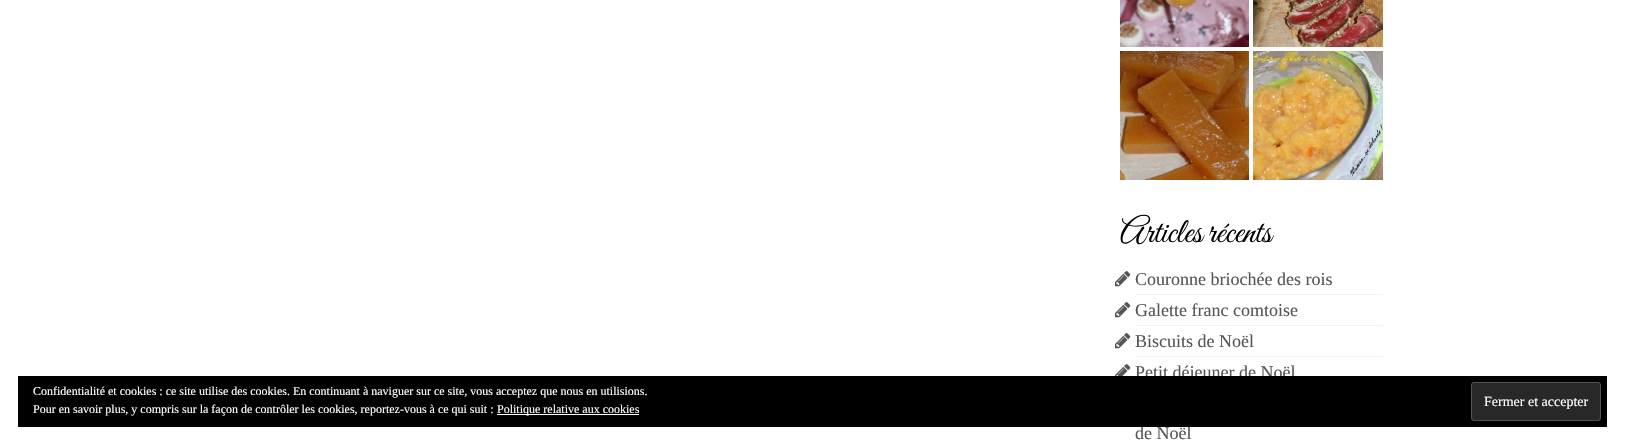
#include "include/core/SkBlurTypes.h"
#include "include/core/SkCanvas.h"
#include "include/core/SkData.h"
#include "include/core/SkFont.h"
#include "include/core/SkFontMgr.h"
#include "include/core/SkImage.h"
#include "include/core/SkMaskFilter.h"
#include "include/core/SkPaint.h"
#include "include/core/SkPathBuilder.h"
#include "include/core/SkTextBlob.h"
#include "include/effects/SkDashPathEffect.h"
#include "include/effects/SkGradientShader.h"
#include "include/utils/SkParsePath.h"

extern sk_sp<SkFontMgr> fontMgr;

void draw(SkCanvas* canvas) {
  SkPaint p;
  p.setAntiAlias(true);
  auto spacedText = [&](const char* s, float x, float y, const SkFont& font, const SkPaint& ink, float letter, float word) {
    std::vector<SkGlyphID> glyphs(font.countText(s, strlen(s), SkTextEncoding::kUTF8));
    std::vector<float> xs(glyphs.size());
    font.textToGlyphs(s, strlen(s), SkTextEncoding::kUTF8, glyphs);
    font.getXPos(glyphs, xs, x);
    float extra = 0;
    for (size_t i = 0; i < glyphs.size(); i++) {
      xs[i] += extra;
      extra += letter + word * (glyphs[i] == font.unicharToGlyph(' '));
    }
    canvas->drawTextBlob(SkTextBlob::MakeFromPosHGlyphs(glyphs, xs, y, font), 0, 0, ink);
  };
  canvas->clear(SK_ColorWHITE);
  canvas->drawImageRect(SkImages::DeferredFromEncodedData(SkData::MakeFromFileName("images/1.png")), SkRect::MakeLTRB(1120, 0, 1249, 47), SkSamplingOptions());
  canvas->drawImageRect(SkImages::DeferredFromEncodedData(SkData::MakeFromFileName("images/2.png")), SkRect::MakeLTRB(1253, 0, 1383, 47), SkSamplingOptions());
  canvas->drawImageRect(SkImages::DeferredFromEncodedData(SkData::MakeFromFileName("images/3.png")), SkRect::MakeLTRB(1120, 51, 1249, 180), SkSamplingOptions());
  canvas->drawImageRect(SkImages::DeferredFromEncodedData(SkData::MakeFromFileName("images/4.png")), SkRect::MakeLTRB(1253, 51, 1383, 180), SkSamplingOptions());
  p.setColor(SkColorSetRGB(242, 242, 242));
  canvas->drawRect(SkRect::MakeLTRB(1135, 294, 1383, 295), p);
  canvas->drawImageRect(SkImages::DeferredFromEncodedData(SkData::MakeFromFileName("images/5.png")), SkRect::MakeLTRB(1115, 271, 1131, 287), SkSamplingOptions());
  canvas->drawRect(SkRect::MakeLTRB(1135, 325, 1383, 326), p);
  canvas->drawImageRect(SkImages::DeferredFromEncodedData(SkData::MakeFromFileName("images/5.png")), SkRect::MakeLTRB(1115, 302, 1131, 318), SkSamplingOptions());
  canvas->drawRect(SkRect::MakeLTRB(1135, 356, 1383, 357), p);
  canvas->drawImageRect(SkImages::DeferredFromEncodedData(SkData::MakeFromFileName("images/5.png")), SkRect::MakeLTRB(1115, 333, 1131, 349), SkSamplingOptions());
  canvas->drawImageRect(SkImages::DeferredFromEncodedData(SkData::MakeFromFileName("images/6.png")), SkRect::MakeLTRB(1115, 364, 1131, 376), SkSamplingOptions());
  SkFont font1(fontMgr->matchFamilyStyle("Great Vibes", SkFontStyle::Normal()), 35);
  font1.setSubpixel(true);
  p.setColor(SK_ColorBLACK);
  spacedText("Articles récents", 1120, 242, font1, p, 0, -1);
  SkFont font2(fontMgr->matchFamilyStyle("Liberation Serif", SkFontStyle::Normal()), 18);
  font2.setSubpixel(true);
  p.setColor(SkColorSetRGB(85, 85, 85));
  canvas->drawString("Couronne briochée des rois", 1135, 285, font2, p);
  canvas->drawString("Galette franc comtoise", 1135, 316, font2, p);
  canvas->drawString("Biscuits de Noël", 1135, 347, font2, p);
  canvas->drawString("Petit déjeuner de Noël", 1135, 378, font2, p);
  canvas->drawString("de Noël", 1135, 439, font2, p);
  p.setColor(SK_ColorBLACK);
  canvas->drawRect(SkRect::MakeLTRB(18, 376, 1607, 427), p);
  SkFont font3(fontMgr->matchFamilyStyle("Liberation Serif", SkFontStyle::Normal()), 12);
  font3.setSubpixel(true);
  p.setColor(SK_ColorWHITE);
  canvas->drawString("Confidentialité et cookies : ce site utilise des cookies. En continuant à naviguer sur ce site, vous acceptez que nous en utilisions.", 33, 395, font3, p);
  canvas->drawString("Pour en savoir plus, y compris sur la façon de contrôler les cookies, reportez-vous à ce qui suit :", 33, 413, font3, p);
  canvas->drawRect(SkRect::MakeLTRB(497, 414, 639, 415), p);
  canvas->drawString("Politique relative aux cookies", 497, 413, font3, p);
  p.setColor(SkColorSetRGB(40, 40, 40));
  canvas->drawRoundRect(SkRect::MakeLTRB(1471.5f, 382.5f, 1600.5f, 420.5f), 2.5f, 2.5f, p);
  p.setStyle(SkPaint::kStroke_Style);
  p.setStrokeWidth(1);
  p.setColor(SkColorSetRGB(83, 83, 83));
  canvas->drawRoundRect(SkRect::MakeLTRB(1471.5f, 382.5f, 1600.5f, 420.5f), 2.5f, 2.5f, p);
  SkFont font4(fontMgr->matchFamilyStyle("Liberation Serif", SkFontStyle::Normal()), 14);
  font4.setSubpixel(true);
  p.setStyle(SkPaint::kFill_Style);
  p.setColor(SK_ColorWHITE);
  canvas->drawString("Fermer et accepter", 1484, 406, font4, p);
}
